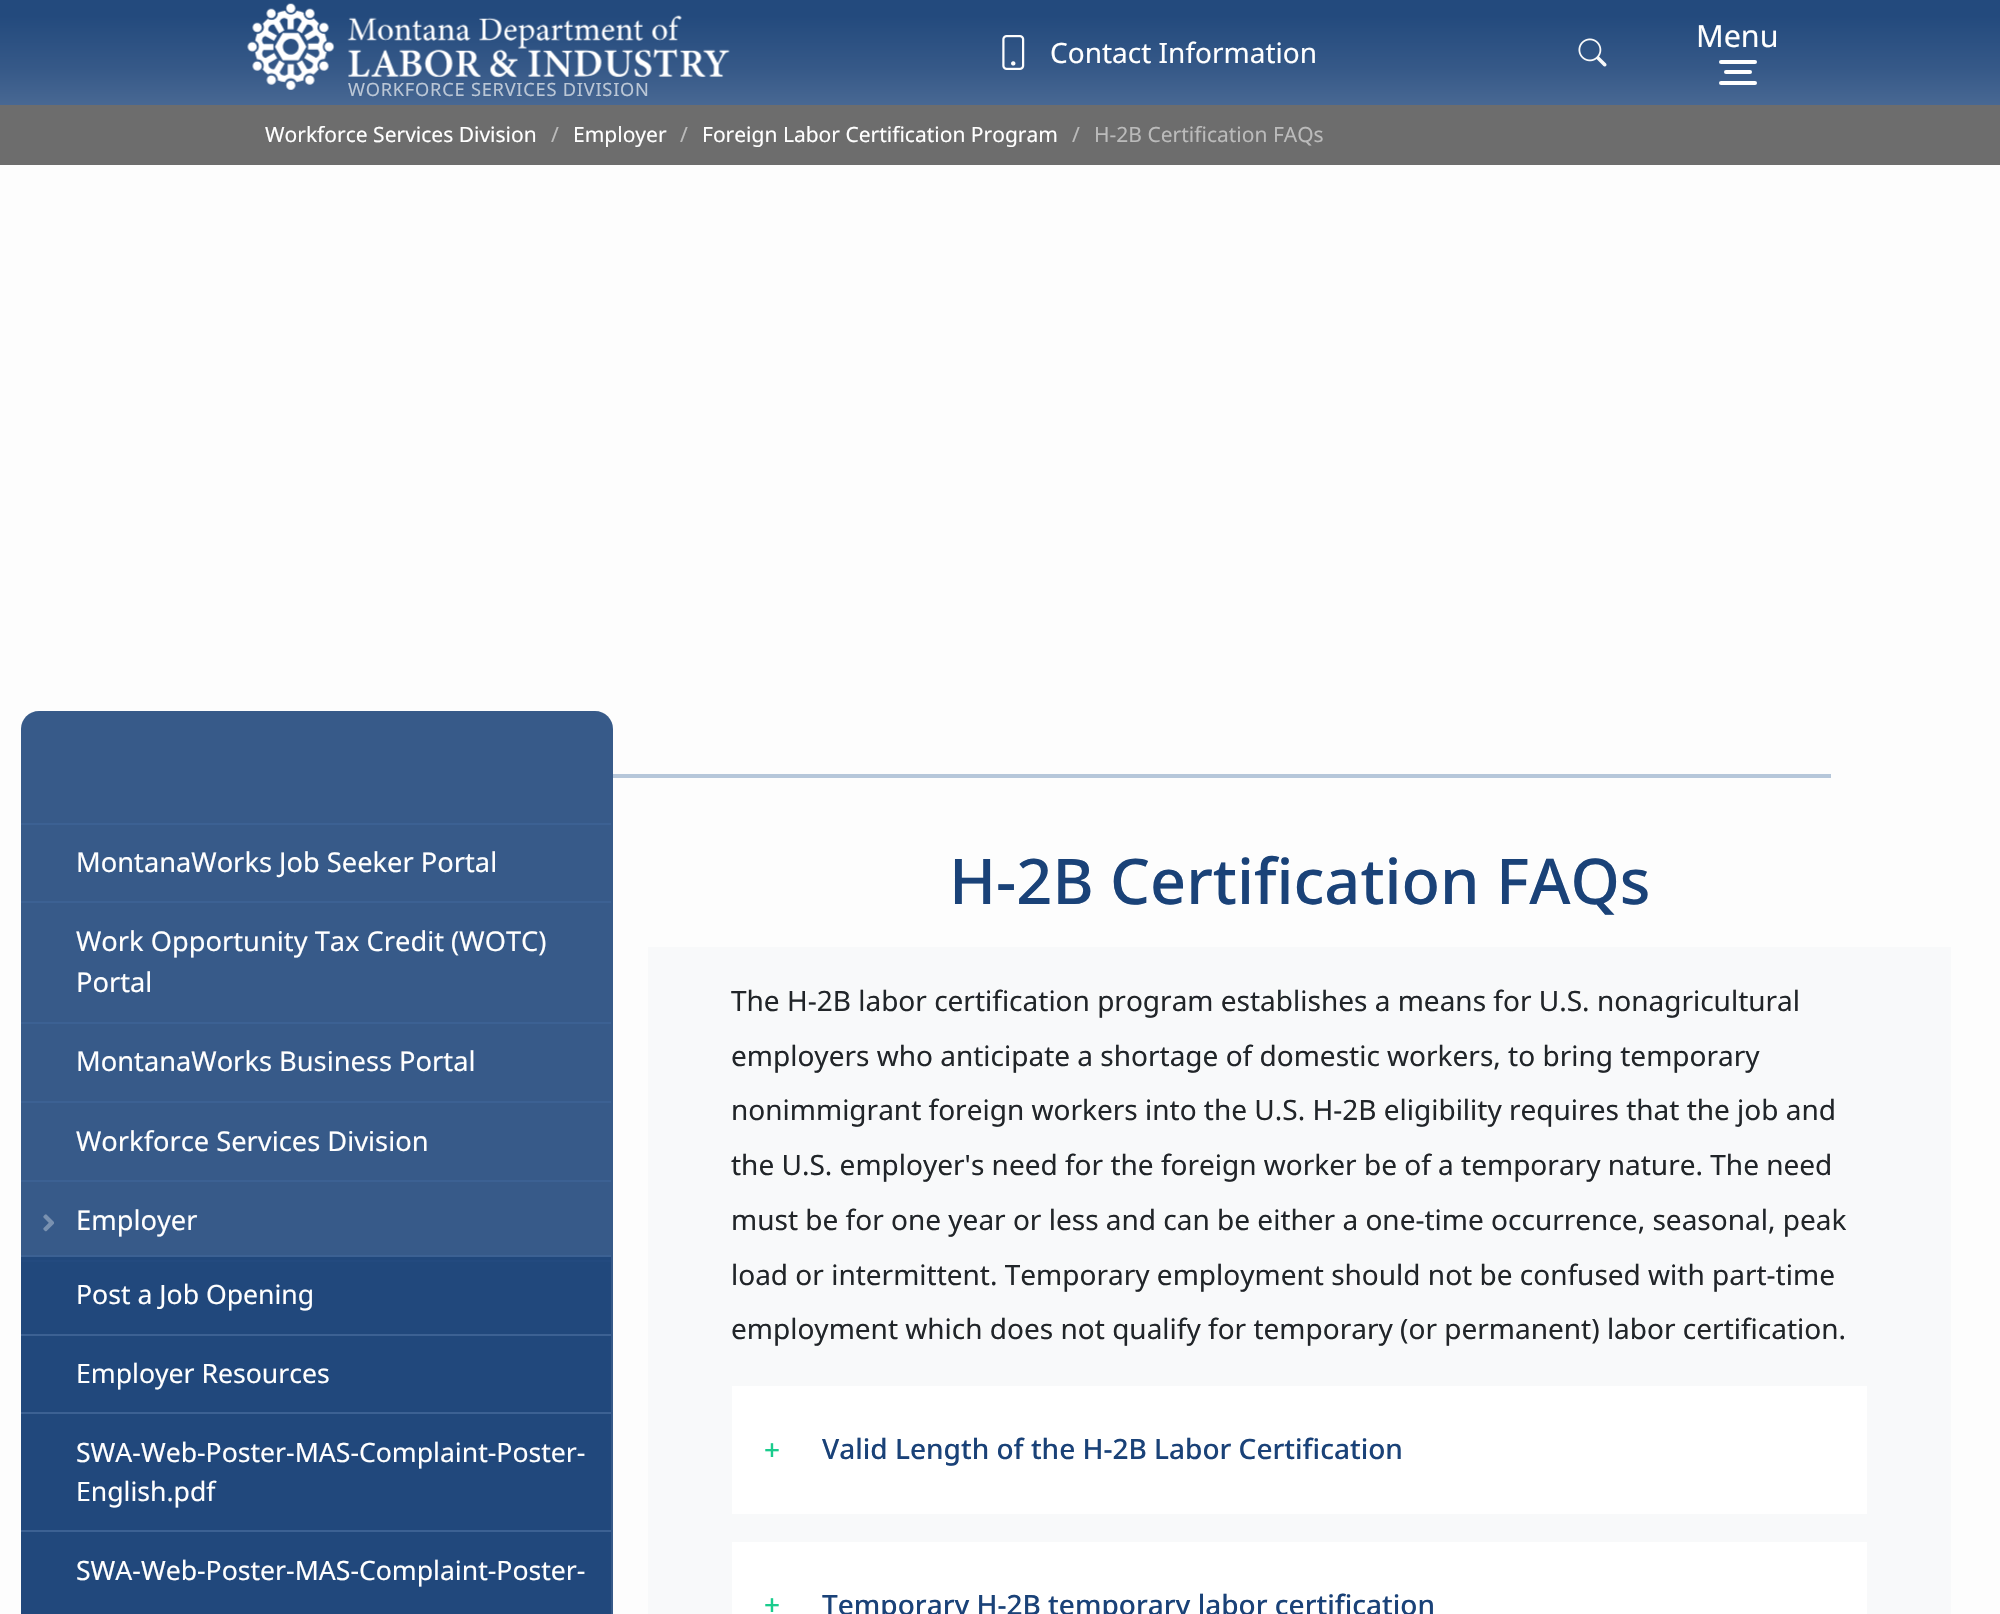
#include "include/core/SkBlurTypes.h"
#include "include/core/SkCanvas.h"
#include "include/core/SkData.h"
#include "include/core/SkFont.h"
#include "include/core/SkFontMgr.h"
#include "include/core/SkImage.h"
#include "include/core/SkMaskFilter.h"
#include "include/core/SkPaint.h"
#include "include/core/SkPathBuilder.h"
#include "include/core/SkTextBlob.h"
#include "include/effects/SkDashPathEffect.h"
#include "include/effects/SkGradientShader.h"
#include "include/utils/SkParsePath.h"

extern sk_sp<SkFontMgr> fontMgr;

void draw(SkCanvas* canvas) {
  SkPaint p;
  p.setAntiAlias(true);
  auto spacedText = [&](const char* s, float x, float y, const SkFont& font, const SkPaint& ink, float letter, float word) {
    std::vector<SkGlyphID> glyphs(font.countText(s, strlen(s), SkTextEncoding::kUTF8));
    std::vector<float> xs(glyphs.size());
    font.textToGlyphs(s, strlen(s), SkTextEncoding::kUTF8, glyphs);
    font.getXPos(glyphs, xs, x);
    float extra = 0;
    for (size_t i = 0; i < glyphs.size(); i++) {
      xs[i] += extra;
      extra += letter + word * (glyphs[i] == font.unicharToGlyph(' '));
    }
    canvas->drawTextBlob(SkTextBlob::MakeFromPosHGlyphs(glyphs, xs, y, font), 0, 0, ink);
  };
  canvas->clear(SkColorSetRGB(253, 253, 253));
  {
    const SkColor colors[] = {SkColorSetRGB(35, 74, 125), SkColorSetRGB(35, 74, 125), SkColorSetRGB(54, 89, 136), SkColorSetRGB(72, 104, 147)};
    const float stops[] = {0, 0.15f, 0.66f, 1};
    const SkPoint ends[] = {{1000, 0}, {1000, 105}};
    p.setShader(SkGradientShader::MakeLinear(ends, colors, stops, 4, SkTileMode::kClamp));
    p.setAlpha(255);
  }
  canvas->drawRect(SkRect::MakeLTRB(0, 0, 2000, 105), p);
  canvas->drawImageRect(SkImages::DeferredFromEncodedData(SkData::MakeFromFileName("images/1.png")), SkRect::MakeLTRB(1002, 35, 1025, 70), SkSamplingOptions());
  canvas->drawImageRect(SkImages::DeferredFromEncodedData(SkData::MakeFromFileName("images/2.png")), SkRect::MakeLTRB(1578, 38, 1607, 67), SkSamplingOptions());
  p.setShader(nullptr);
  p.setColor(SK_ColorWHITE);
  canvas->drawRoundRect(SkRect::MakeLTRB(1719, 60, 1757, 64), 2, 2, p);
  canvas->drawRoundRect(SkRect::MakeLTRB(1724, 70, 1752, 74), 2, 2, p);
  canvas->drawRoundRect(SkRect::MakeLTRB(1719, 81, 1757, 85), 2, 2, p);
  canvas->drawImageRect(SkImages::DeferredFromEncodedData(SkData::MakeFromFileName("images/3.png")), SkRect::MakeLTRB(247, 3, 730, 90), SkSamplingOptions());
  p.setColor(SkColorSetRGB(109, 109, 109));
  canvas->drawRect(SkRect::MakeLTRB(0, 105, 2000, 165), p);
  p.setColor(SkColorSetRGB(182, 199, 218));
  canvas->drawRect(SkRect::MakeLTRB(613, 774, 1831, 778), p);
  p.setColor(SkColorSetRGB(55, 90, 137));
  canvas->drawRect(SkRect::MakeLTRB(21, 753, 613, 1614), p);
  p.setColor(SkColorSetRGB(33, 72, 124));
  canvas->drawRect(SkRect::MakeLTRB(21, 1257, 611, 1334), p);
  p.setColor(SkColorSetRGB(55, 90, 137));
  canvas->drawPath(SkPathBuilder().moveTo(39, 711).lineTo(595, 711).cubicTo(605, 711, 613, 719, 613, 729).lineTo(613, 753).lineTo(21, 753).lineTo(21, 729).cubicTo(21, 719, 29, 711, 39, 711).close().detach(), p);
  p.setColor(SkColorSetRGB(60, 97, 147));
  canvas->drawRect(SkRect::MakeLTRB(21, 823, 611, 825), p);
  canvas->drawRect(SkRect::MakeLTRB(21, 901, 611, 903), p);
  canvas->drawRect(SkRect::MakeLTRB(21, 1022, 611, 1024), p);
  canvas->drawRect(SkRect::MakeLTRB(21, 1101, 611, 1103), p);
  canvas->drawRect(SkRect::MakeLTRB(21, 1180, 611, 1182), p);
  canvas->drawImageRect(SkImages::DeferredFromEncodedData(SkData::MakeFromFileName("images/4.png")), SkRect::MakeLTRB(43, 1214, 54, 1232), SkSamplingOptions());
  p.setColor(SkColorSetRGB(35, 74, 127));
  canvas->drawRect(SkRect::MakeLTRB(21, 1260, 611, 1262), p);
  p.setColor(SkColorSetRGB(60, 97, 147));
  canvas->drawRect(SkRect::MakeLTRB(21, 1255, 611, 1257), p);
  p.setColor(SkColorSetRGB(33, 72, 124));
  canvas->drawRect(SkRect::MakeLTRB(21, 1336, 611, 1412), p);
  p.setColor(SkColorSetRGB(60, 97, 147));
  canvas->drawRect(SkRect::MakeLTRB(21, 1334, 611, 1336), p);
  p.setColor(SkColorSetRGB(33, 72, 124));
  canvas->drawRect(SkRect::MakeLTRB(21, 1414, 611, 1530), p);
  p.setColor(SkColorSetRGB(60, 97, 147));
  canvas->drawRect(SkRect::MakeLTRB(21, 1412, 611, 1414), p);
  p.setColor(SkColorSetRGB(33, 72, 124));
  canvas->drawRect(SkRect::MakeLTRB(21, 1532, 611, 1614), p);
  p.setColor(SkColorSetRGB(60, 97, 147));
  canvas->drawRect(SkRect::MakeLTRB(21, 1530, 611, 1532), p);
  p.setColor(SkColorSetRGB(248, 249, 250));
  canvas->drawRect(SkRect::MakeLTRB(648, 947, 1951, 1614), p);
  p.setColor(SK_ColorWHITE);
  canvas->drawRect(SkRect::MakeLTRB(734, 1388, 1865, 1512), p);
  p.setStyle(SkPaint::kStroke_Style);
  p.setStrokeWidth(4);
  canvas->drawRect(SkRect::MakeLTRB(734, 1388, 1865, 1512), p);
  p.setStyle(SkPaint::kFill_Style);
  canvas->drawRect(SkRect::MakeLTRB(734, 1544, 1865, 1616), p);
  p.setStyle(SkPaint::kStroke_Style);
  canvas->drawRect(SkRect::MakeLTRB(734, 1544, 1865, 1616), p);
  SkFont font1(fontMgr->matchFamilyStyle("Noto Sans", SkFontStyle::Normal()), 28);
  font1.setSubpixel(true);
  p.setStyle(SkPaint::kFill_Style);
  canvas->drawString("Contact Information", 1050, 63, font1, p);
  SkFont font2(fontMgr->matchFamilyStyle("Noto Sans", SkFontStyle::Normal()), 30.5f);
  font2.setSubpixel(true);
  canvas->drawString("Menu", 1696, 47, font2, p);
  SkFont font3(fontMgr->matchFamilyStyle("Noto Sans", SkFontStyle::Normal()), 18.25f);
  font3.setSubpixel(true);
  p.setColor(SkColorSetRGB(187, 199, 214));
  spacedText("WORKFORCE SERVICES DIVISION", 348, 96, font3, p, 0.75f, 0);
  SkFont font4(fontMgr->matchFamilyStyle("Noto Sans", SkFontStyle::Normal()), 21);
  font4.setSubpixel(true);
  p.setColor(SK_ColorWHITE);
  canvas->drawString("Workforce Services Division", 265, 142, font4, p);
  p.setColor(SkColorSetRGB(187, 187, 187));
  canvas->drawString("/", 551, 142, font4, p);
  p.setColor(SK_ColorWHITE);
  canvas->drawString("Employer", 573, 142, font4, p);
  p.setColor(SkColorSetRGB(187, 187, 187));
  canvas->drawString("/", 680, 142, font4, p);
  p.setColor(SK_ColorWHITE);
  canvas->drawString("Foreign Labor Certification Program", 702, 142, font4, p);
  p.setColor(SkColorSetRGB(187, 187, 187));
  canvas->drawString("/", 1072, 142, font4, p);
  canvas->drawString("H-2B Certification FAQs", 1094, 142, font4, p);
  SkFont font5(fontMgr->matchFamilyStyle("Noto Sans", SkFontStyle::Normal()), 27.25f);
  font5.setSubpixel(true);
  p.setColor(SK_ColorWHITE);
  canvas->drawString("MontanaWorks Job Seeker Portal", 76, 872, font5, p);
  canvas->drawString("Work Opportunity Tax Credit (WOTC)", 76, 951, font5, p);
  canvas->drawString("Portal", 76, 992, font5, p);
  canvas->drawString("MontanaWorks Business Portal", 76, 1071, font5, p);
  canvas->drawString("Workforce Services Division", 76, 1151, font5, p);
  canvas->drawString("Employer", 76, 1230, font5, p);
  SkFont font6(fontMgr->matchFamilyStyle("Noto Sans", SkFontStyle::Normal()), 26.6f);
  font6.setSubpixel(true);
  canvas->drawString("Post a Job Opening", 76, 1304, font6, p);
  canvas->drawString("Employer Resources", 76, 1383, font6, p);
  canvas->drawString("SWA-Web-Poster-MAS-Complaint-Poster-", 76, 1462, font6, p);
  canvas->drawString("English.pdf", 76, 1501, font6, p);
  canvas->drawString("SWA-Web-Poster-MAS-Complaint-Poster-", 76, 1580, font6, p);
  SkFont font7(fontMgr->matchFamilyStyle("Noto Sans", SkFontStyle(500, SkFontStyle::kNormal_Width, SkFontStyle::kUpright_Slant)), 63);
  font7.setSubpixel(true);
  p.setColor(SkColorSetRGB(26, 66, 120));
  canvas->drawString("H-2B Certification FAQs", 949, 904, font7, p);
  p.setColor(SkColorSetRGB(33, 37, 41));
  canvas->drawString("The H-2B labor certification program establishes a means for U.S. nonagricultural", 731, 1011, font1, p);
  canvas->drawString("employers who anticipate a shortage of domestic workers, to bring temporary", 731, 1066, font1, p);
  canvas->drawString("nonimmigrant foreign workers into the U.S. H-2B eligibility requires that the job and", 731, 1120, font1, p);
  canvas->drawString("the U.S. employer's need for the foreign worker be of a temporary nature. The need", 731, 1175, font1, p);
  canvas->drawString("must be for one year or less and can be either a one-time occurrence, seasonal, peak", 731, 1230, font1, p);
  canvas->drawString("load or intermittent. Temporary employment should not be confused with part-time", 731, 1285, font1, p);
  canvas->drawString("employment which does not qualify for temporary (or permanent) labor certification.", 731, 1339, font1, p);
  SkFont font8(fontMgr->matchFamilyStyle("Noto Sans", SkFontStyle(500, SkFontStyle::kNormal_Width, SkFontStyle::kUpright_Slant)), 28);
  font8.setSubpixel(true);
  p.setColor(SkColorSetRGB(26, 204, 141));
  canvas->drawString("+", 764, 1460, font8, p);
  p.setColor(SkColorSetRGB(26, 66, 120));
  canvas->drawString("Valid Length of the H-2B Labor Certification", 822, 1459, font8, p);
  p.setColor(SkColorSetRGB(26, 204, 141));
  canvas->drawString("+", 764, 1615, font8, p);
  p.setColor(SkColorSetRGB(26, 66, 120));
  canvas->drawString("Temporary H-2B temporary labor certification", 822, 1615, font8, p);
}
